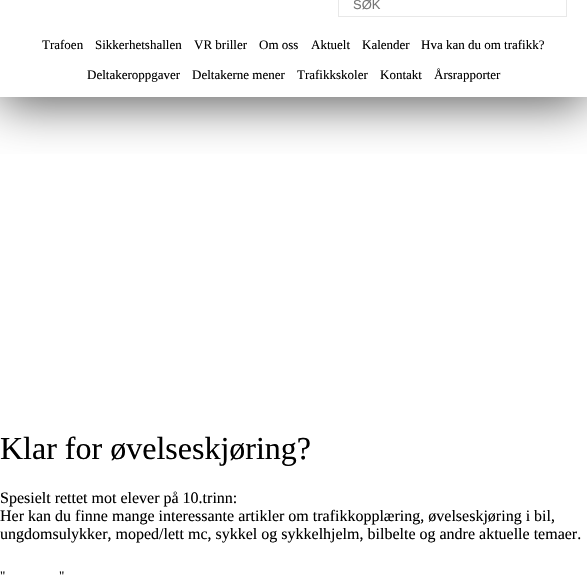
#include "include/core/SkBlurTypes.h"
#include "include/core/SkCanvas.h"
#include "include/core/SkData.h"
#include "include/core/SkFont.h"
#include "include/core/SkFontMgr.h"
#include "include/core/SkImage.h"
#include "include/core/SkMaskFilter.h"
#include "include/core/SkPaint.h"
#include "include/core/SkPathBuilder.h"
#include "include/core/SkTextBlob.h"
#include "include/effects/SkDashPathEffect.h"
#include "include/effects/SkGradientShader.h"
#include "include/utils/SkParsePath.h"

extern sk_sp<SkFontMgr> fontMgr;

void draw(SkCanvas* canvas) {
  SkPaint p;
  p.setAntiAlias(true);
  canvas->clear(SK_ColorWHITE);
  canvas->save();
  canvas->clipRect(SkRect::MakeLTRB(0, 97, 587, 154));
  p.setColor(SkColorSetRGB(85, 85, 85));
  p.setMaskFilter(SkMaskFilter::MakeBlur(kNormal_SkBlurStyle, 25));
  canvas->drawRect(SkRect::MakeLTRB(0, -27, 587, 103), p);
  p.setMaskFilter(nullptr);
  canvas->restore();
  p.setStyle(SkPaint::kStroke_Style);
  p.setStrokeWidth(1);
  p.setColor(SkColorSetRGB(232, 232, 232));
  canvas->drawRect(SkRect::MakeLTRB(338.5f, -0.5f, 566.5f, 16.5f), p);
  SkFont font1(fontMgr->matchFamilyStyle("Liberation Sans", SkFontStyle::Normal()), 13);
  font1.setSubpixel(true);
  p.setStyle(SkPaint::kFill_Style);
  p.setColor(SkColorSetRGB(117, 117, 117));
  canvas->drawString("SØK", 353, 9, font1, p);
  SkFont font2(fontMgr->matchFamilyStyle("Liberation Serif", SkFontStyle::Normal()), 13);
  font2.setSubpixel(true);
  p.setColor(SK_ColorBLACK);
  canvas->drawString("Trafoen", 42, 49, font2, p);
  canvas->drawString("Sikkerhetshallen", 95, 49, font2, p);
  canvas->drawString("VR briller", 194, 49, font2, p);
  canvas->drawString("Om oss", 259, 49, font2, p);
  canvas->drawString("Aktuelt", 311, 49, font2, p);
  canvas->drawString("Kalender", 362, 49, font2, p);
  canvas->drawString("Hva kan du om trafikk?", 421, 49, font2, p);
  canvas->drawString("Deltakeroppgaver", 87, 79, font2, p);
  canvas->drawString("Deltakerne mener", 192, 79, font2, p);
  canvas->drawString("Trafikkskoler", 297, 79, font2, p);
  canvas->drawString("Kontakt", 380, 79, font2, p);
  canvas->drawString("Årsrapporter", 434, 79, font2, p);
  SkFont font3(fontMgr->matchFamilyStyle("Liberation Serif", SkFontStyle::Normal()), 32);
  font3.setSubpixel(true);
  canvas->drawString("Klar for øvelseskjøring?", 0, 459, font3, p);
  SkFont font4(fontMgr->matchFamilyStyle("Liberation Serif", SkFontStyle::Normal()), 16);
  font4.setSubpixel(true);
  canvas->drawString("Spesielt rettet mot elever på 10.trinn:", 0, 503, font4, p);
  canvas->drawString("Her kan du finne mange interessante artikler om trafikkopplæring, øvelseskjøring i bil,", 0, 521, font4, p);
  canvas->drawString("ungdomsulykker, moped/lett mc, sykkel og sykkelhjelm, bilbelte og andre aktuelle temaer.", 0, 539, font4, p);
  canvas->drawString("\"", 0, 580, font2, p);
  canvas->drawString("\"", 59, 580, font2, p);
}
